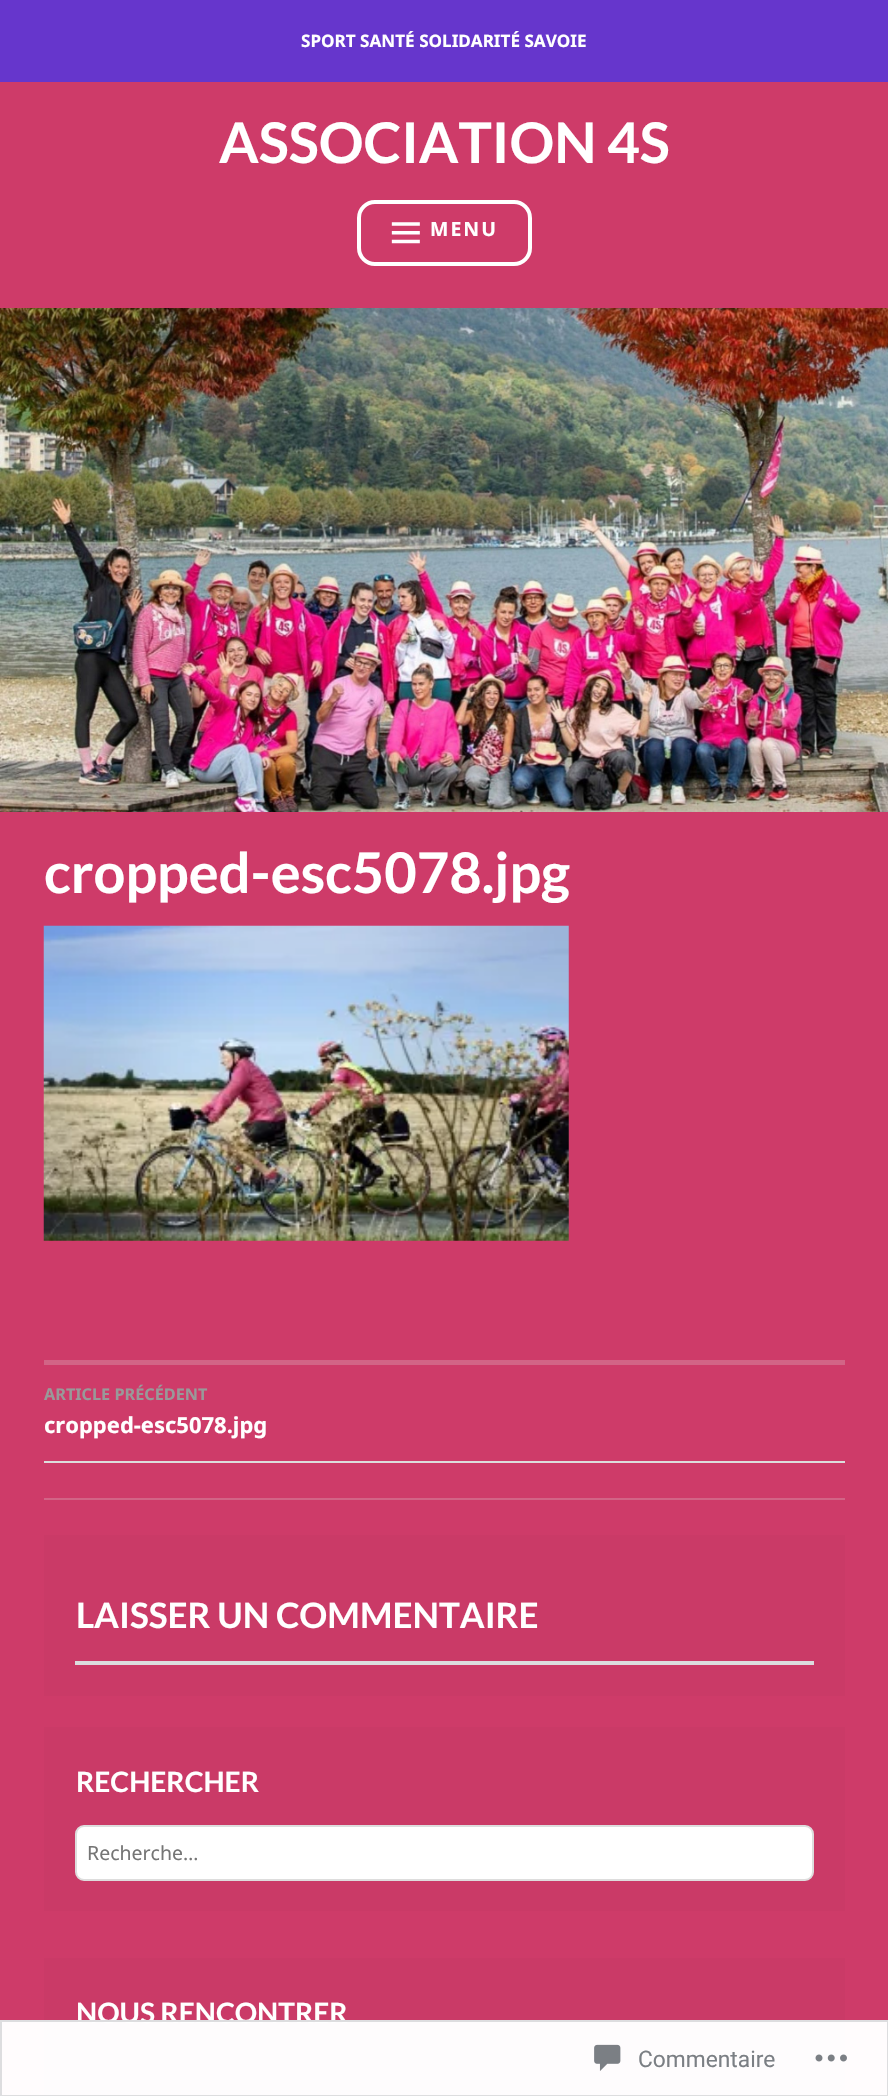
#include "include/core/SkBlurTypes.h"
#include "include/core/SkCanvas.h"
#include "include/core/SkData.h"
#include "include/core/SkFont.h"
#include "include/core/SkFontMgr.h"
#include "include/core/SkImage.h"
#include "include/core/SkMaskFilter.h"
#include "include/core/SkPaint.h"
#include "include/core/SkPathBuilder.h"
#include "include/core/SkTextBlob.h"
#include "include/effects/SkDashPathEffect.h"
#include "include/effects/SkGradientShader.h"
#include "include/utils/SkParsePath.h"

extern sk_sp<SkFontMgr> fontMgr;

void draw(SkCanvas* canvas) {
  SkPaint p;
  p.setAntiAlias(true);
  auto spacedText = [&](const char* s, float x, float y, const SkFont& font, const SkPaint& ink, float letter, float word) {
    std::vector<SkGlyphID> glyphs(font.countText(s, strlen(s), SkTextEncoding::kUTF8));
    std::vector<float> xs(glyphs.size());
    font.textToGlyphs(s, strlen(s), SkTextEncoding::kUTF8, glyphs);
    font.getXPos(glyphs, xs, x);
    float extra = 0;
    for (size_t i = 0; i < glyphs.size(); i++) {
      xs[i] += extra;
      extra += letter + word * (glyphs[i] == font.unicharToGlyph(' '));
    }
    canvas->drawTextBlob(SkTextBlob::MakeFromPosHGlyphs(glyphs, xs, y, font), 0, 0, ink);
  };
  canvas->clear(SkColorSetRGB(206, 59, 105));
  p.setColor(SkColorSetRGB(102, 54, 204));
  canvas->drawRect(SkRect::MakeLTRB(0, 0, 888, 82), p);
  p.setStyle(SkPaint::kStroke_Style);
  p.setStrokeWidth(4);
  p.setColor(SK_ColorWHITE);
  canvas->drawRoundRect(SkRect::MakeLTRB(359, 202, 530, 264), 16, 16, p);
  canvas->drawImageRect(SkImages::DeferredFromEncodedData(SkData::MakeFromFileName("images/1.png")), SkRect::MakeLTRB(391, 222, 420, 244), SkSamplingOptions());
  canvas->drawImageRect(SkImages::DeferredFromEncodedData(SkData::MakeFromFileName("images/2.png")), SkRect::MakeLTRB(0, 308, 888, 812), SkSamplingOptions());
  canvas->drawImageRect(SkImages::DeferredFromEncodedData(SkData::MakeFromFileName("images/3.png")), SkRect::MakeLTRB(43, 925, 569, 1241), SkSamplingOptions());
  p.setStyle(SkPaint::kFill_Style);
  p.setColor(SkColorSetRGB(210, 100, 134));
  canvas->drawRect(SkRect::MakeLTRB(44, 1360, 845, 1365), p);
  canvas->drawRect(SkRect::MakeLTRB(44, 1498, 845, 1500), p);
  p.setColor(SkColorSetRGB(221, 221, 221));
  canvas->drawRect(SkRect::MakeLTRB(44, 1461, 845, 1463), p);
  p.setColor(SkColorSetRGB(202, 58, 103));
  canvas->drawRect(SkRect::MakeLTRB(44, 1535, 845, 1696), p);
  p.setColor(SkColorSetRGB(220, 220, 222));
  canvas->drawRect(SkRect::MakeLTRB(75, 1661, 814, 1665), p);
  p.setColor(SkColorSetRGB(202, 58, 103));
  canvas->drawRect(SkRect::MakeLTRB(44, 1727, 845, 1911), p);
  p.setColor(SK_ColorWHITE);
  canvas->drawRoundRect(SkRect::MakeLTRB(76, 1826, 813, 1880), 8, 8, p);
  p.setStyle(SkPaint::kStroke_Style);
  p.setStrokeWidth(2);
  p.setColor(SkColorSetRGB(221, 221, 221));
  canvas->drawRoundRect(SkRect::MakeLTRB(76, 1826, 813, 1880), 8, 8, p);
  p.setStyle(SkPaint::kFill_Style);
  p.setColor(SkColorSetRGB(202, 58, 103));
  canvas->drawRect(SkRect::MakeLTRB(44, 1958, 845, 2096), p);
  SkFont font1(fontMgr->matchFamilyStyle("Noto Sans", SkFontStyle::Bold()), 17.1f);
  font1.setSubpixel(true);
  p.setColor(SK_ColorWHITE);
  canvas->drawString("SPORT SANTÉ SOLIDARITÉ SAVOIE", 301, 47, font1, p);
  SkFont font2(fontMgr->matchFamilyStyle("Lato", SkFontStyle::Bold()), 56);
  font2.setSubpixel(true);
  canvas->drawString("ASSOCIATION 4S", 219, 163, font2, p);
  SkFont font3(fontMgr->matchFamilyStyle("Noto Sans", SkFontStyle::Bold()), 19.5f);
  font3.setSubpixel(true);
  spacedText("MENU", 430, 236, font3, p, 2, 0);
  canvas->drawString("cropped-esc5078.jpg", 44, 893, font2, p);
  SkFont font4(fontMgr->matchFamilyStyle("Noto Sans", SkFontStyle::Bold()), 16.25f);
  font4.setSubpixel(true);
  p.setColor(SkColorSetRGB(153, 153, 153));
  canvas->drawString("ARTICLE PRÉCÉDENT", 44, 1400, font4, p);
  SkFont font5(fontMgr->matchFamilyStyle("Noto Sans", SkFontStyle::Bold()), 22);
  font5.setSubpixel(true);
  p.setColor(SK_ColorWHITE);
  canvas->drawString("cropped-esc5078.jpg", 44, 1433, font5, p);
  SkFont font6(fontMgr->matchFamilyStyle("Lato", SkFontStyle::Bold()), 35);
  font6.setSubpixel(true);
  canvas->drawString("LAISSER UN COMMENTAIRE", 76, 1628, font6, p);
  SkFont font7(fontMgr->matchFamilyStyle("Lato", SkFontStyle::Bold()), 28);
  font7.setSubpixel(true);
  canvas->drawString("RECHERCHER", 76, 1792, font7, p);
  SkFont font8(fontMgr->matchFamilyStyle("Noto Sans", SkFontStyle::Normal()), 19.5f);
  font8.setSubpixel(true);
  p.setColor(SkColorSetRGB(117, 117, 117));
  canvas->drawString("Recherche…", 87, 1860, font8, p);
  p.setColor(SK_ColorWHITE);
  canvas->drawString("NOUS RENCONTRER", 76, 2023, font7, p);
  p.setColor(SkColorSetARGB(250, 255, 255, 255));
  canvas->drawRect(SkRect::MakeLTRB(0, 2020, 888, 2096), p);
  p.setStyle(SkPaint::kStroke_Style);
  p.setColor(SkColorSetARGB(250, 220, 220, 222));
  canvas->drawRect(SkRect::MakeLTRB(1, 2021, 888, 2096), p);
  canvas->drawImageRect(SkImages::DeferredFromEncodedData(SkData::MakeFromFileName("images/4.png")), SkRect::MakeLTRB(594, 2044, 621, 2071), SkSamplingOptions());
  SkFont font9(fontMgr->matchFamilyStyle("Roboto", SkFontStyle::Normal()), 22.75f);
  font9.setSubpixel(true);
  p.setStyle(SkPaint::kFill_Style);
  p.setColor(SkColorSetRGB(123, 127, 132));
  canvas->drawString("Commentaire", 638, 2067, font9, p);
  canvas->drawImageRect(SkImages::DeferredFromEncodedData(SkData::MakeFromFileName("images/5.png")), SkRect::MakeLTRB(815, 2054, 847, 2062), SkSamplingOptions());
}
